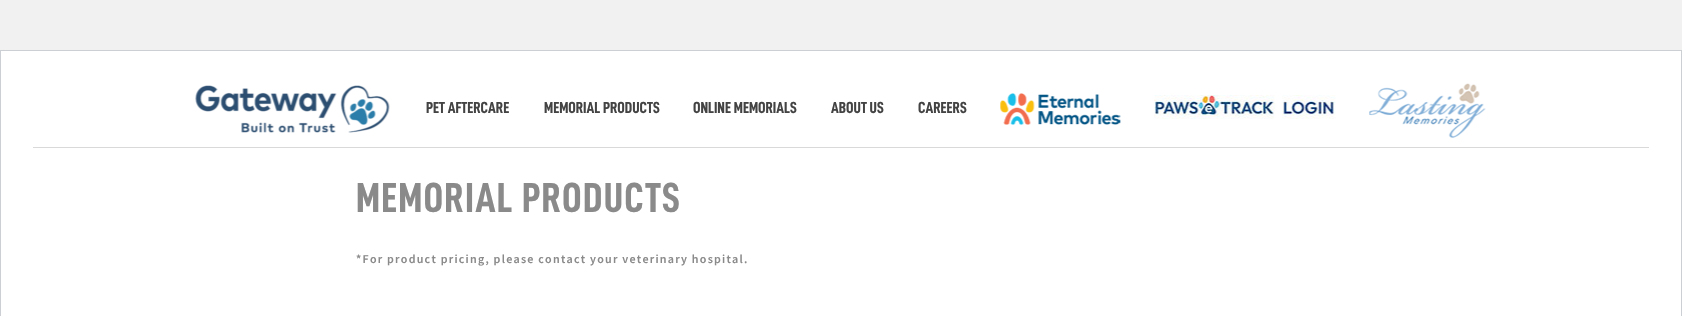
#include "include/core/SkBlurTypes.h"
#include "include/core/SkCanvas.h"
#include "include/core/SkData.h"
#include "include/core/SkFont.h"
#include "include/core/SkFontMgr.h"
#include "include/core/SkImage.h"
#include "include/core/SkMaskFilter.h"
#include "include/core/SkPaint.h"
#include "include/core/SkPathBuilder.h"
#include "include/core/SkTextBlob.h"
#include "include/effects/SkDashPathEffect.h"
#include "include/effects/SkGradientShader.h"
#include "include/utils/SkParsePath.h"

extern sk_sp<SkFontMgr> fontMgr;

void draw(SkCanvas* canvas) {
  SkPaint p;
  p.setAntiAlias(true);
  auto spacedText = [&](const char* s, float x, float y, const SkFont& font, const SkPaint& ink, float letter, float word) {
    std::vector<SkGlyphID> glyphs(font.countText(s, strlen(s), SkTextEncoding::kUTF8));
    std::vector<float> xs(glyphs.size());
    font.textToGlyphs(s, strlen(s), SkTextEncoding::kUTF8, glyphs);
    font.getXPos(glyphs, xs, x);
    float extra = 0;
    for (size_t i = 0; i < glyphs.size(); i++) {
      xs[i] += extra;
      extra += letter + word * (glyphs[i] == font.unicharToGlyph(' '));
    }
    canvas->drawTextBlob(SkTextBlob::MakeFromPosHGlyphs(glyphs, xs, y, font), 0, 0, ink);
  };
  canvas->clear(SkColorSetRGB(241, 241, 241));
  p.setColor(SK_ColorWHITE);
  canvas->drawRect(SkRect::MakeLTRB(0.5f, 50.5f, 1681.5f, 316.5f), p);
  p.setStyle(SkPaint::kStroke_Style);
  p.setStrokeWidth(1);
  p.setColor(SkColorSetRGB(204, 208, 212));
  canvas->drawRect(SkRect::MakeLTRB(0.5f, 50.5f, 1681.5f, 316.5f), p);
  p.setStyle(SkPaint::kFill_Style);
  p.setColor(SkColorSetRGB(217, 217, 217));
  canvas->drawRect(SkRect::MakeLTRB(33, 147, 1649, 148), p);
  canvas->drawImageRect(SkImages::DeferredFromEncodedData(SkData::MakeFromFileName("images/1.png")), SkRect::MakeLTRB(195, 85, 390, 133), SkSamplingOptions());
  canvas->drawImageRect(SkImages::DeferredFromEncodedData(SkData::MakeFromFileName("images/2.png")), SkRect::MakeLTRB(1000, 93, 1121, 125), SkSamplingOptions());
  canvas->drawImageRect(SkImages::DeferredFromEncodedData(SkData::MakeFromFileName("images/3.png")), SkRect::MakeLTRB(1154, 95, 1336, 119), SkSamplingOptions());
  canvas->drawImageRect(SkImages::DeferredFromEncodedData(SkData::MakeFromFileName("images/4.png")), SkRect::MakeLTRB(1369, 83, 1486, 138), SkSamplingOptions());
  SkFont font1(fontMgr->matchFamilyStyle("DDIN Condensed", SkFontStyle::Bold()), 16);
  font1.setSubpixel(true);
  p.setColor(SkColorSetRGB(67, 67, 67));
  canvas->drawString("PET AFTERCARE", 426, 113, font1, p);
  canvas->drawString("MEMORIAL PRODUCTS", 544, 113, font1, p);
  canvas->drawString("ONLINE MEMORIALS", 693, 113, font1, p);
  canvas->drawString("ABOUT US", 831, 113, font1, p);
  canvas->drawString("CAREERS", 918, 113, font1, p);
  SkFont font2(fontMgr->matchFamilyStyle("DDIN Condensed", SkFontStyle::Bold()), 42);
  font2.setSubpixel(true);
  p.setColor(SkColorSetRGB(139, 138, 138));
  spacedText("MEMORIAL PRODUCTS", 356, 212, font2, p, 1.25f, 0);
  SkFont font3(fontMgr->matchFamilyStyle("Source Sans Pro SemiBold", SkFontStyle(600, SkFontStyle::kNormal_Width, SkFontStyle::kUpright_Slant)), 12);
  font3.setSubpixel(true);
  spacedText("*For product pricing, please contact your veterinary hospital.", 356, 263, font3, p, 1.25f, 0);
}
